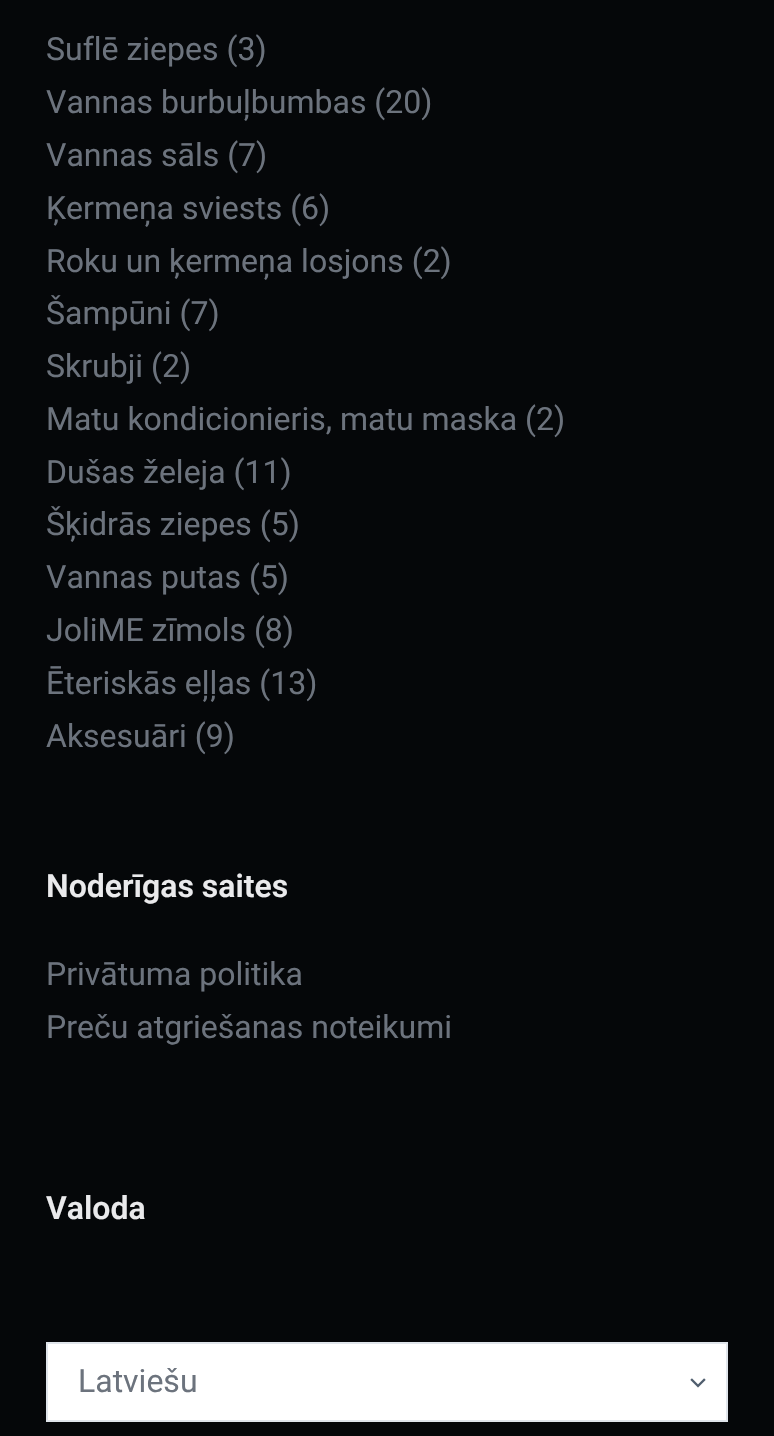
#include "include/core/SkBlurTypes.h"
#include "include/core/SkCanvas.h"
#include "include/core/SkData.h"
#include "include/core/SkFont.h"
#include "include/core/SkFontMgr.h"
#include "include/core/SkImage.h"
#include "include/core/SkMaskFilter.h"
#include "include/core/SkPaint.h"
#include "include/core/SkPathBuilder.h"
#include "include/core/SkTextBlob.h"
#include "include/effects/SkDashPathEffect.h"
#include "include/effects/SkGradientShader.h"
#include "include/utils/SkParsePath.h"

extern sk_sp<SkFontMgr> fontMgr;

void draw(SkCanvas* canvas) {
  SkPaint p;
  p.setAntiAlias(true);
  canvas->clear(SkColorSetRGB(5, 7, 9));
  p.setColor(SK_ColorWHITE);
  canvas->drawRect(SkRect::MakeLTRB(48, 1344, 726, 1420), p);
  canvas->drawImageRect(SkImages::DeferredFromEncodedData(SkData::MakeFromFileName("images/1.png")), SkRect::MakeLTRB(690, 1378, 706, 1388), SkSamplingOptions());
  p.setStyle(SkPaint::kStroke_Style);
  p.setStrokeWidth(2);
  p.setColor(SkColorSetRGB(224, 229, 235));
  canvas->drawRect(SkRect::MakeLTRB(47, 1343, 727, 1421), p);
  SkFont font1(fontMgr->matchFamilyStyle("Roboto", SkFontStyle::Normal()), 32);
  font1.setSubpixel(true);
  p.setStyle(SkPaint::kFill_Style);
  p.setColor(SkColorSetRGB(108, 115, 125));
  canvas->drawString("Suflē ziepes (3)", 46, 60, font1, p);
  canvas->drawString("Vannas burbuļbumbas (20)", 46, 113, font1, p);
  canvas->drawString("Vannas sāls (7)", 46, 166, font1, p);
  canvas->drawString("Ķermeņa sviests (6)", 46, 219, font1, p);
  canvas->drawString("Roku un ķermeņa losjons (2)", 46, 272, font1, p);
  canvas->drawString("Šampūni (7)", 46, 324, font1, p);
  canvas->drawString("Skrubji (2)", 46, 377, font1, p);
  canvas->drawString("Matu kondicionieris, matu maska (2)", 46, 430, font1, p);
  canvas->drawString("Dušas želeja (11)", 46, 483, font1, p);
  canvas->drawString("Šķidrās ziepes (5)", 46, 535, font1, p);
  canvas->drawString("Vannas putas (5)", 46, 588, font1, p);
  canvas->drawString("JoliME zīmols (8)", 46, 641, font1, p);
  canvas->drawString("Ēteriskās eļļas (13)", 46, 694, font1, p);
  canvas->drawString("Aksesuāri (9)", 46, 747, font1, p);
  SkFont font2(fontMgr->matchFamilyStyle("Roboto", SkFontStyle(600, SkFontStyle::kNormal_Width, SkFontStyle::kUpright_Slant)), 32);
  font2.setSubpixel(true);
  p.setColor(SkColorSetRGB(234, 234, 236));
  canvas->drawString("Noderīgas saites", 46, 897, font2, p);
  p.setColor(SkColorSetRGB(108, 115, 125));
  canvas->drawString("Privātuma politika", 46, 985, font1, p);
  canvas->drawString("Preču atgriešanas noteikumi", 46, 1038, font1, p);
  p.setColor(SkColorSetRGB(234, 234, 236));
  canvas->drawString("Valoda", 46, 1219, font2, p);
  p.setColor(SkColorSetRGB(108, 115, 125));
  canvas->drawString("Latviešu", 78, 1392, font1, p);
}
